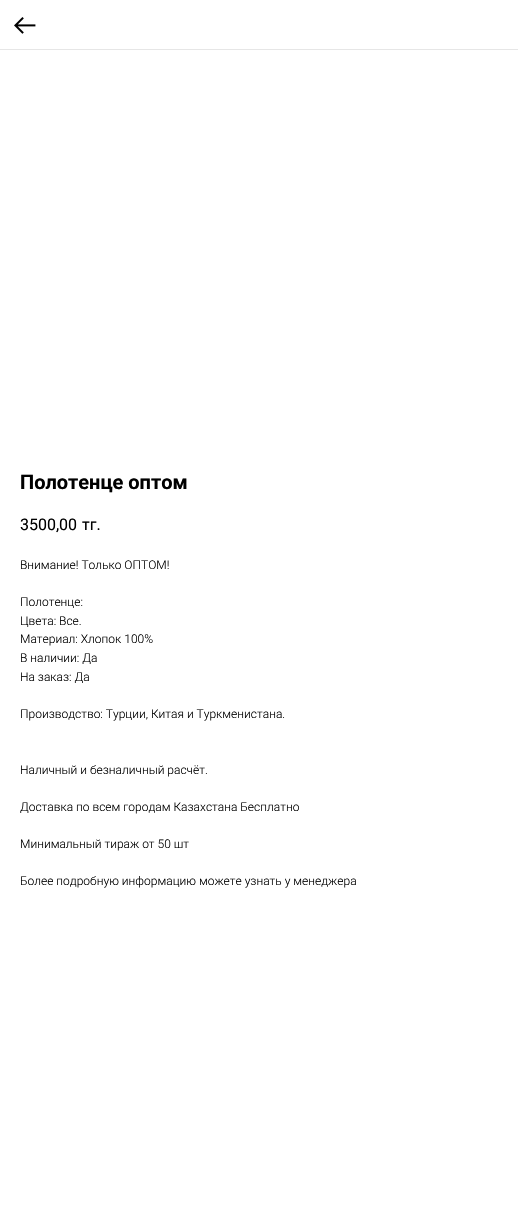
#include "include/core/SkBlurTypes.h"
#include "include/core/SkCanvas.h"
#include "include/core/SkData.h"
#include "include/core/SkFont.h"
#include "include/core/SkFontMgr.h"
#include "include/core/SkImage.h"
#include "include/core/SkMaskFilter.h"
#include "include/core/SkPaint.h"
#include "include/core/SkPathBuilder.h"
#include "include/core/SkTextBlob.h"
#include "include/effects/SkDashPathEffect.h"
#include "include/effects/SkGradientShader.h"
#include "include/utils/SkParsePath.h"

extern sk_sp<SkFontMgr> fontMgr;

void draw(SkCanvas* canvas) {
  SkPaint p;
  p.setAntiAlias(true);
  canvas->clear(SK_ColorWHITE);
  p.setColor(SkColorSetRGB(230, 230, 230));
  canvas->drawRect(SkRect::MakeLTRB(0, 49, 518, 50), p);
  canvas->drawImageRect(SkImages::DeferredFromEncodedData(SkData::MakeFromFileName("images/1.png")), SkRect::MakeLTRB(14, 17, 36, 34), SkSamplingOptions());
  SkFont font1(fontMgr->matchFamilyStyle("Roboto", SkFontStyle::Bold()), 20);
  font1.setSubpixel(true);
  p.setColor(SK_ColorBLACK);
  canvas->drawString("Полотенце оптом", 20, 489, font1, p);
  SkFont font2(fontMgr->matchFamilyStyle("Roboto", SkFontStyle::Normal()), 16);
  font2.setSubpixel(true);
  canvas->drawString("3500,00", 20, 530, font2, p);
  canvas->drawString("тг.", 82, 530, font2, p);
  SkFont font3(fontMgr->matchFamilyStyle("Roboto", SkFontStyle(300, SkFontStyle::kNormal_Width, SkFontStyle::kUpright_Slant)), 12);
  font3.setSubpixel(true);
  canvas->drawString("Внимание! Только ОПТОМ!", 20, 569, font3, p);
  canvas->drawString("Полотенце:", 20, 606, font3, p);
  canvas->drawString("Цвета: Все.", 20, 625, font3, p);
  canvas->drawString("Материал: Хлопок 100%", 20, 643, font3, p);
  canvas->drawString("В наличии: Да", 20, 662, font3, p);
  canvas->drawString("На заказ: Да", 20, 681, font3, p);
  canvas->drawString("Производство: Турции, Китая и Туркменистана.", 20, 718, font3, p);
  canvas->drawString("Наличный и безналичный расчёт.", 20, 774, font3, p);
  canvas->drawString("Доставка по всем городам Казахстана Бесплатно", 20, 811, font3, p);
  canvas->drawString("Минимальный тираж от 50 шт", 20, 848, font3, p);
  canvas->drawString("Более подробную информацию можете узнать у менеджера", 20, 885, font3, p);
}
